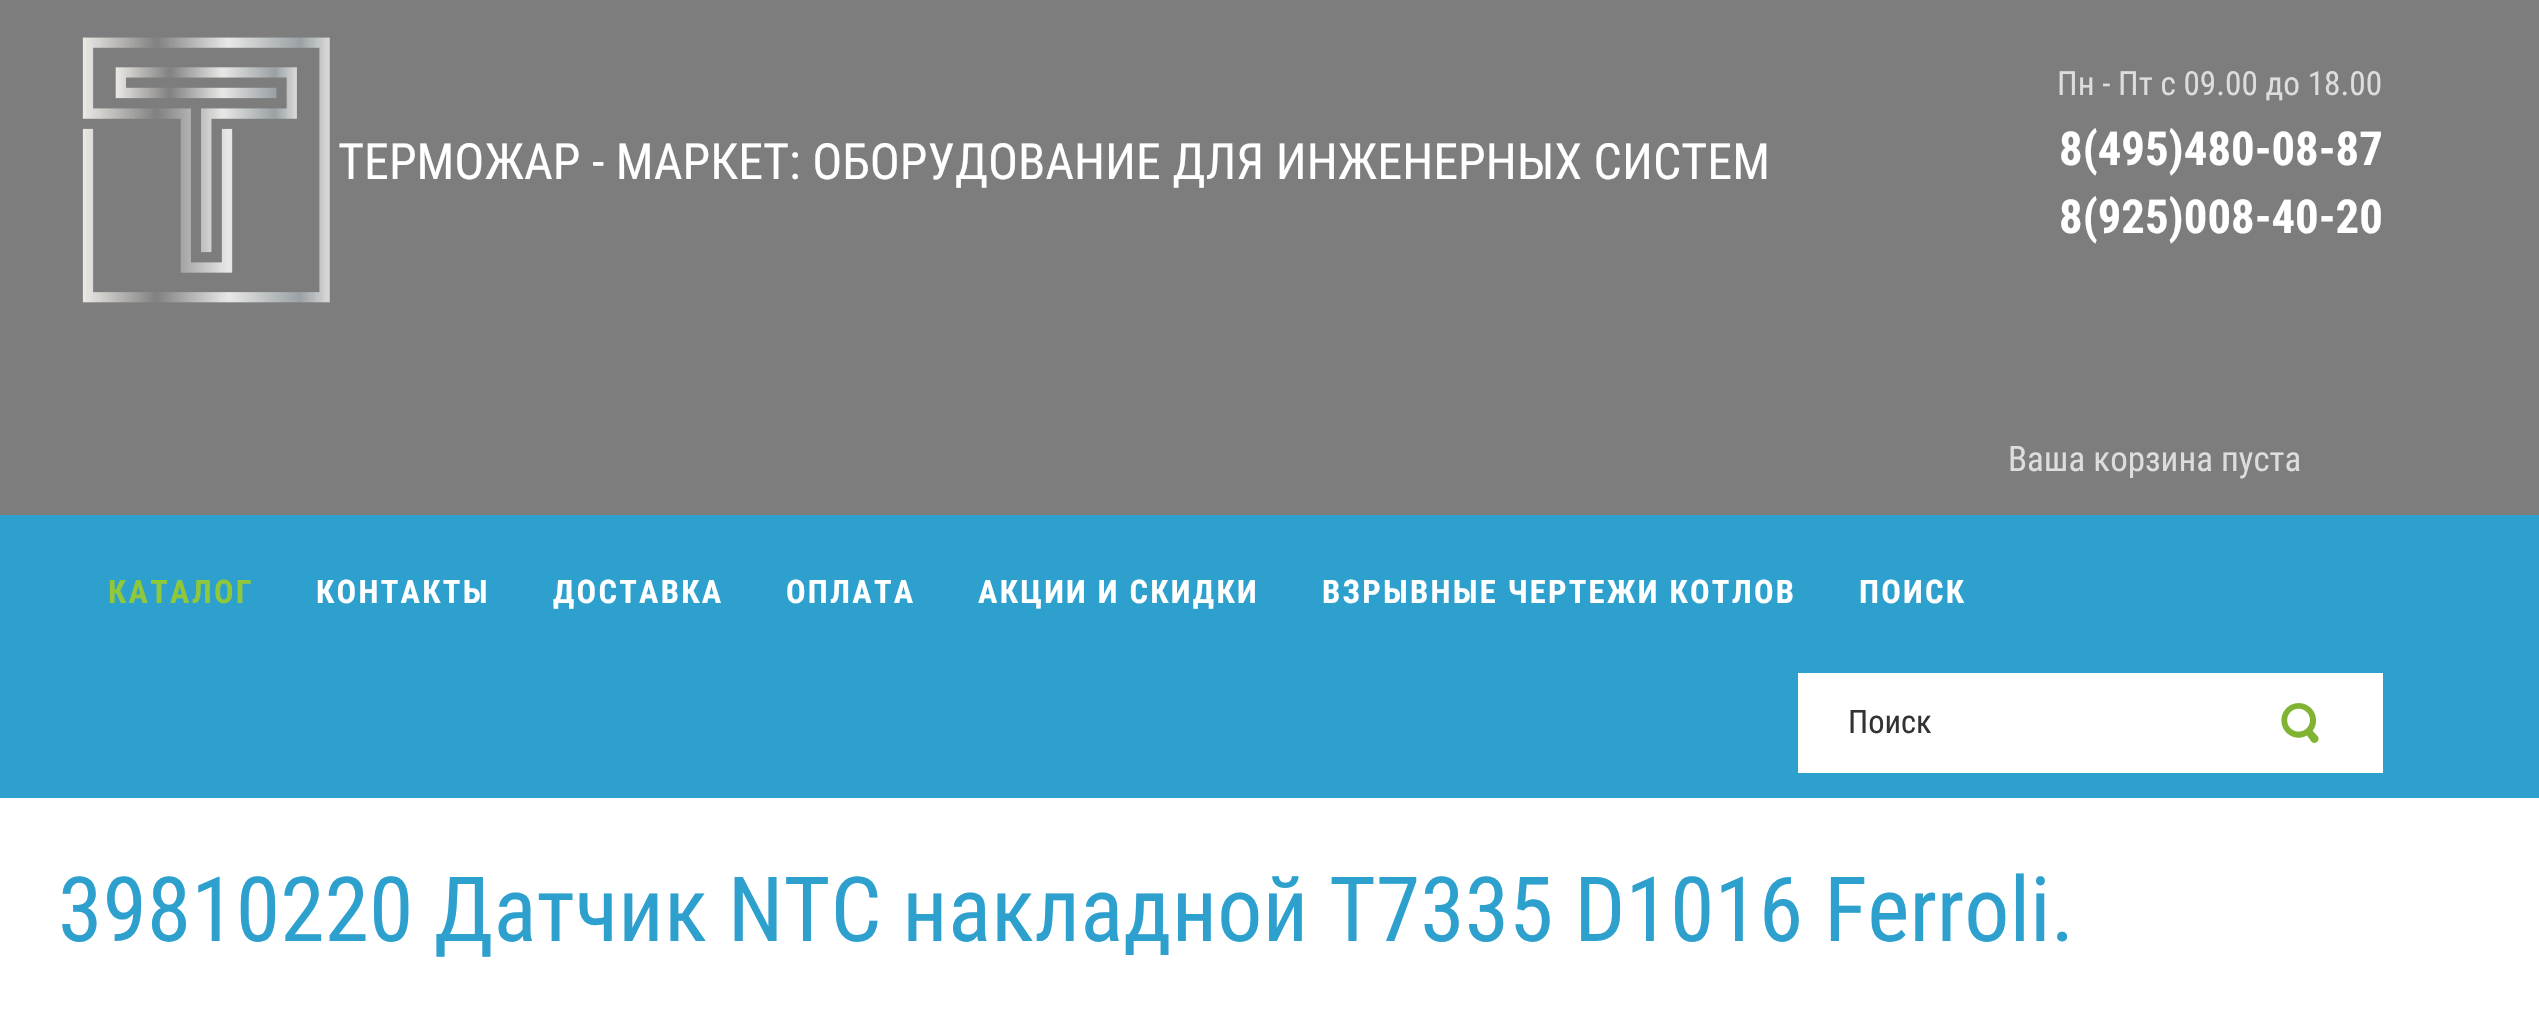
#include "include/core/SkBlurTypes.h"
#include "include/core/SkCanvas.h"
#include "include/core/SkData.h"
#include "include/core/SkFont.h"
#include "include/core/SkFontMgr.h"
#include "include/core/SkImage.h"
#include "include/core/SkMaskFilter.h"
#include "include/core/SkPaint.h"
#include "include/core/SkPathBuilder.h"
#include "include/core/SkTextBlob.h"
#include "include/effects/SkDashPathEffect.h"
#include "include/effects/SkGradientShader.h"
#include "include/utils/SkParsePath.h"

extern sk_sp<SkFontMgr> fontMgr;

void draw(SkCanvas* canvas) {
  SkPaint p;
  p.setAntiAlias(true);
  auto spacedText = [&](const char* s, float x, float y, const SkFont& font, const SkPaint& ink, float letter, float word) {
    std::vector<SkGlyphID> glyphs(font.countText(s, strlen(s), SkTextEncoding::kUTF8));
    std::vector<float> xs(glyphs.size());
    font.textToGlyphs(s, strlen(s), SkTextEncoding::kUTF8, glyphs);
    font.getXPos(glyphs, xs, x);
    float extra = 0;
    for (size_t i = 0; i < glyphs.size(); i++) {
      xs[i] += extra;
      extra += letter + word * (glyphs[i] == font.unicharToGlyph(' '));
    }
    canvas->drawTextBlob(SkTextBlob::MakeFromPosHGlyphs(glyphs, xs, y, font), 0, 0, ink);
  };
  canvas->clear(SK_ColorWHITE);
  p.setColor(SkColorSetRGB(125, 125, 125));
  canvas->drawRect(SkRect::MakeLTRB(0, 0, 2539, 515), p);
  canvas->drawImageRect(SkImages::DeferredFromEncodedData(SkData::MakeFromFileName("images/1.png")), SkRect::MakeLTRB(82, 37, 330, 303), SkSamplingOptions());
  p.setColor(SkColorSetRGB(45, 160, 206));
  canvas->drawRect(SkRect::MakeLTRB(0, 515, 2539, 798), p);
  p.setColor(SK_ColorWHITE);
  canvas->drawRect(SkRect::MakeLTRB(1798, 673, 2383, 773), p);
  canvas->drawImageRect(SkImages::DeferredFromEncodedData(SkData::MakeFromFileName("images/2.png")), SkRect::MakeLTRB(2281, 703, 2319, 743), SkSamplingOptions());
  SkFont font1(fontMgr->matchFamilyStyle("Roboto Condensed", SkFontStyle::Normal()), 50);
  font1.setSubpixel(true);
  canvas->drawString("ТЕРМОЖАР - МАРКЕТ: ОБОРУДОВАНИЕ ДЛЯ ИНЖЕНЕРНЫХ СИСТЕМ", 338, 179, font1, p);
  SkFont font2(fontMgr->matchFamilyStyle("Roboto Condensed", SkFontStyle::Normal()), 33.25f);
  font2.setSubpixel(true);
  p.setColor(SkColorSetRGB(221, 221, 221));
  canvas->drawString("Пн - Пт с 09.00 до 18.00", 2057, 95, font2, p);
  SkFont font3(fontMgr->matchFamilyStyle("Roboto Condensed", SkFontStyle::Bold()), 46.75f);
  font3.setSubpixel(true);
  p.setColor(SK_ColorWHITE);
  canvas->drawString("8(495)480-08-87", 2059, 165, font3, p);
  canvas->drawString("8(925)008-40-20", 2059, 233, font3, p);
  SkFont font4(fontMgr->matchFamilyStyle("Roboto Condensed", SkFontStyle::Normal()), 35);
  font4.setSubpixel(true);
  p.setColor(SkColorSetRGB(221, 221, 221));
  canvas->drawString("Ваша корзина пуста", 2008, 471, font4, p);
  SkFont font5(fontMgr->matchFamilyStyle("Roboto Condensed", SkFontStyle::Bold()), 32.5f);
  font5.setSubpixel(true);
  p.setColor(SkColorSetRGB(144, 200, 60));
  spacedText("КАТАЛОГ", 108, 603, font5, p, 2.25f, 0);
  p.setColor(SK_ColorWHITE);
  spacedText("КОНТАКТЫ", 316, 603, font5, p, 2.25f, 0);
  spacedText("ДОСТАВКА", 553, 603, font5, p, 2.25f, 0);
  spacedText("ОПЛАТА", 786, 603, font5, p, 2.25f, 0);
  spacedText("АКЦИИ И СКИДКИ", 978, 603, font5, p, 2.25f, 0);
  spacedText("ВЗРЫВНЫЕ ЧЕРТЕЖИ КОТЛОВ", 1322, 603, font5, p, 2.25f, 0);
  spacedText("ПОИСК", 1859, 603, font5, p, 2.25f, 0);
  SkFont font6(fontMgr->matchFamilyStyle("Roboto Condensed", SkFontStyle::Normal()), 32.5f);
  font6.setSubpixel(true);
  p.setColor(SkColorSetRGB(51, 51, 51));
  canvas->drawString("Поиск", 1848, 733, font6, p);
  SkFont font7(fontMgr->matchFamilyStyle("Roboto Condensed", SkFontStyle::Normal()), 90);
  font7.setSubpixel(true);
  p.setColor(SkColorSetRGB(45, 160, 206));
  canvas->drawString("39810220 Датчик NTC накладной T7335 D1016 Ferroli.", 58, 941, font7, p);
}
